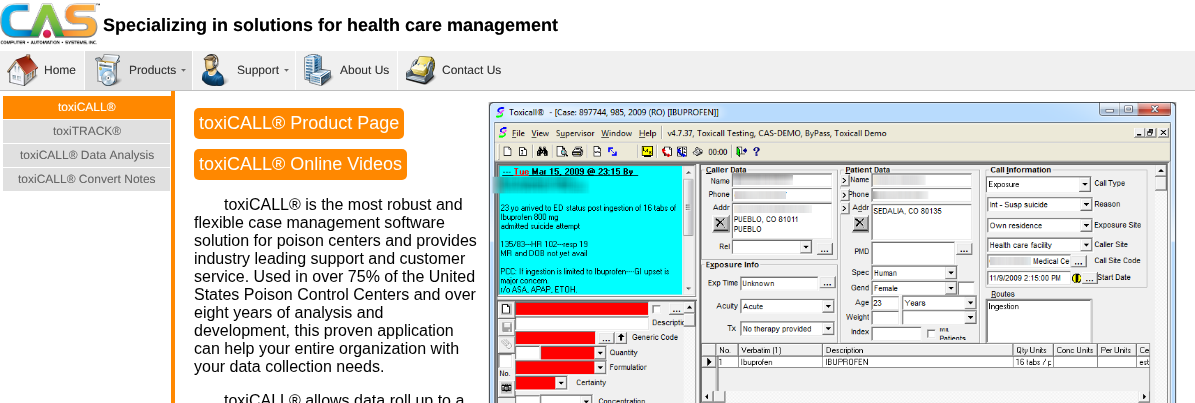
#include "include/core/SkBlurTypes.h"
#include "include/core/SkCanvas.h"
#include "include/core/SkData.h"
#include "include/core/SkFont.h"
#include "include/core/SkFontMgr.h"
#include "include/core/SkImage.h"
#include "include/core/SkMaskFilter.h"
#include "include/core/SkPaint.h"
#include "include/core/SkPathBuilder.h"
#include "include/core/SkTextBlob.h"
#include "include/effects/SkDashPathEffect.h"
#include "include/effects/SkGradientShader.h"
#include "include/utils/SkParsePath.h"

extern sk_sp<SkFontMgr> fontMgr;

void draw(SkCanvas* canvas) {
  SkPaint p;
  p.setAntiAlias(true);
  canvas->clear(SK_ColorWHITE);
  p.setColor(SkColorSetRGB(192, 192, 192));
  canvas->drawRect(SkRect::MakeLTRB(0, 90, 1195, 91), p);
  canvas->drawImageRect(SkImages::DeferredFromEncodedData(SkData::MakeFromFileName("images/1.png")), SkRect::MakeLTRB(0, 3, 100, 45), SkSamplingOptions());
  p.setColor(SkColorSetRGB(240, 240, 240));
  canvas->drawRect(SkRect::MakeLTRB(0, 51, 1195, 90), p);
  canvas->drawImageRect(SkImages::DeferredFromEncodedData(SkData::MakeFromFileName("images/2.png")), SkRect::MakeLTRB(7, 54, 38, 86), SkSamplingOptions());
  p.setColor(SK_ColorWHITE);
  canvas->drawRect(SkRect::MakeLTRB(84, 51, 85, 90), p);
  p.setColor(SkColorSetRGB(224, 224, 224));
  canvas->drawRect(SkRect::MakeLTRB(85, 51, 192, 90), p);
  canvas->drawImageRect(SkImages::DeferredFromEncodedData(SkData::MakeFromFileName("images/3.png")), SkRect::MakeLTRB(95, 54, 122, 86), SkSamplingOptions());
  canvas->drawImageRect(SkImages::DeferredFromEncodedData(SkData::MakeFromFileName("images/4.png")), SkRect::MakeLTRB(181, 69, 186, 72), SkSamplingOptions());
  p.setColor(SK_ColorWHITE);
  canvas->drawRect(SkRect::MakeLTRB(192, 51, 193, 90), p);
  canvas->drawImageRect(SkImages::DeferredFromEncodedData(SkData::MakeFromFileName("images/5.png")), SkRect::MakeLTRB(202, 54, 229, 86), SkSamplingOptions());
  canvas->drawImageRect(SkImages::DeferredFromEncodedData(SkData::MakeFromFileName("images/6.png")), SkRect::MakeLTRB(284, 69, 289, 72), SkSamplingOptions());
  canvas->drawRect(SkRect::MakeLTRB(295, 51, 296, 90), p);
  canvas->drawImageRect(SkImages::DeferredFromEncodedData(SkData::MakeFromFileName("images/7.png")), SkRect::MakeLTRB(304, 54, 334, 86), SkSamplingOptions());
  canvas->drawRect(SkRect::MakeLTRB(397, 51, 398, 90), p);
  canvas->drawImageRect(SkImages::DeferredFromEncodedData(SkData::MakeFromFileName("images/8.png")), SkRect::MakeLTRB(406, 56, 437, 85), SkSamplingOptions());
  p.setColor(SkColorSetRGB(255, 136, 0));
  canvas->drawRect(SkRect::MakeLTRB(171, 91, 175, 96), p);
  canvas->drawRect(SkRect::MakeLTRB(3, 96, 175, 119), p);
  p.setColor(SkColorSetRGB(224, 224, 224));
  canvas->drawRect(SkRect::MakeLTRB(3, 120, 170, 143), p);
  p.setColor(SkColorSetRGB(255, 136, 0));
  canvas->drawRect(SkRect::MakeLTRB(171, 119, 175, 403), p);
  p.setColor(SkColorSetRGB(224, 224, 224));
  canvas->drawRect(SkRect::MakeLTRB(3, 144, 170, 167), p);
  canvas->drawRect(SkRect::MakeLTRB(3, 168, 170, 191), p);
  canvas->drawImageRect(SkImages::DeferredFromEncodedData(SkData::MakeFromFileName("images/9.png")), SkRect::MakeLTRB(194, 108, 477, 403), SkSamplingOptions());
  p.setColor(SkColorSetRGB(230, 230, 230));
  canvas->drawRect(SkRect::MakeLTRB(488, 102, 1177, 403), p);
  canvas->drawImageRect(SkImages::DeferredFromEncodedData(SkData::MakeFromFileName("images/10.png")), SkRect::MakeLTRB(489, 102, 1176, 403), SkSamplingOptions());
  SkFont font1(fontMgr->matchFamilyStyle("Liberation Sans", SkFontStyle::Bold()), 18);
  font1.setSubpixel(true);
  p.setColor(SK_ColorBLACK);
  canvas->drawString("Specializing in solutions for health care management", 103, 31, font1, p);
  SkFont font2(fontMgr->matchFamilyStyle("Liberation Sans", SkFontStyle::Normal()), 12);
  font2.setSubpixel(true);
  p.setColor(SkColorSetRGB(51, 51, 51));
  canvas->drawString("Home", 44, 74, font2, p);
  canvas->drawString("Products", 129, 74, font2, p);
  canvas->drawString("Support", 237, 74, font2, p);
  canvas->drawString("About Us", 340, 74, font2, p);
  canvas->drawString("Contact Us", 442, 74, font2, p);
  p.setColor(SK_ColorWHITE);
  canvas->drawString("toxiCALL®", 58, 111, font2, p);
  p.setColor(SkColorSetRGB(102, 102, 102));
  canvas->drawString("toxiTRACK®", 53, 135, font2, p);
  canvas->drawString("toxiCALL® Data Analysis", 20, 159, font2, p);
  canvas->drawString("toxiCALL® Convert Notes", 18, 183, font2, p);
}
